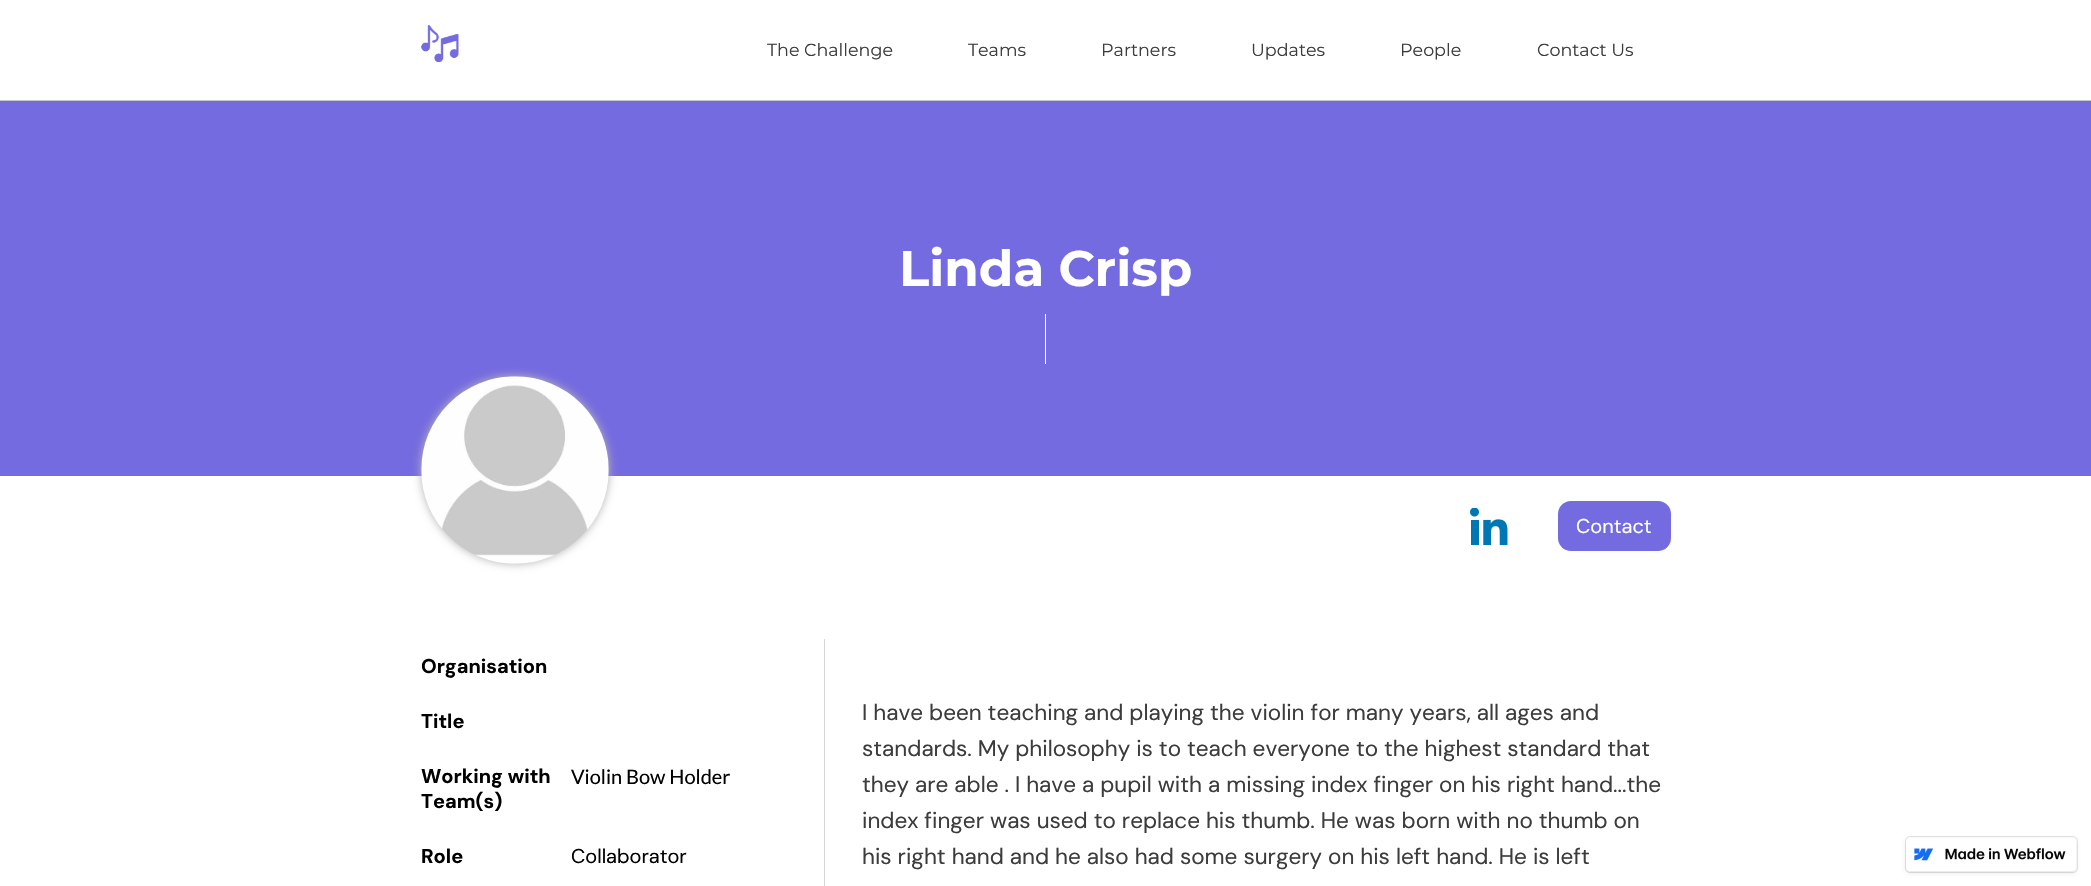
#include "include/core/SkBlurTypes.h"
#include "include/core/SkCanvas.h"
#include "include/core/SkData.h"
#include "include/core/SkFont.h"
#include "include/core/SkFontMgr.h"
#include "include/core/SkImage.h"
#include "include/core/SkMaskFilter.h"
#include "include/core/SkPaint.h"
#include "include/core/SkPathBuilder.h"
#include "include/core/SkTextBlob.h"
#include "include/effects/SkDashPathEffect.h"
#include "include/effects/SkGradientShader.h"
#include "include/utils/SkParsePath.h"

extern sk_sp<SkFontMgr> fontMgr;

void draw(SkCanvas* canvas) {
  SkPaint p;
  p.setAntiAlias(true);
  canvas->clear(SK_ColorWHITE);
  p.setColor(SkColorSetRGB(199, 199, 199));
  canvas->drawRect(SkRect::MakeLTRB(0, 100, 2091, 101), p);
  canvas->drawImageRect(SkImages::DeferredFromEncodedData(SkData::MakeFromFileName("images/1.png")), SkRect::MakeLTRB(421, 25, 459, 62), SkSamplingOptions());
  p.setColor(SkColorSetRGB(117, 107, 224));
  canvas->drawRect(SkRect::MakeLTRB(0, 101, 2091, 476), p);
  p.setColor(SK_ColorWHITE);
  canvas->drawRect(SkRect::MakeLTRB(1045, 314, 1046, 364), p);
  p.setColor(SkColorSetRGB(185, 182, 182));
  p.setMaskFilter(SkMaskFilter::MakeBlur(kNormal_SkBlurStyle, 4));
  canvas->drawRoundRect(SkRect::MakeLTRB(421, 376, 609, 564), 94, 94, p);
  p.setMaskFilter(nullptr);
  canvas->drawImageRect(SkImages::DeferredFromEncodedData(SkData::MakeFromFileName("images/2.png")), SkRect::MakeLTRB(421, 376, 609, 564), SkSamplingOptions());
  canvas->drawImageRect(SkImages::DeferredFromEncodedData(SkData::MakeFromFileName("images/3.png")), SkRect::MakeLTRB(1470, 508, 1508, 545), SkSamplingOptions());
  p.setColor(SkColorSetRGB(117, 107, 224));
  canvas->drawRoundRect(SkRect::MakeLTRB(1558, 501, 1671, 551), 13, 13, p);
  p.setColor(SkColorSetRGB(214, 214, 214));
  canvas->drawRect(SkRect::MakeLTRB(824, 639, 825, 886), p);
  p.setColor(SkColorSetARGB(26, 0, 0, 0));
  p.setMaskFilter(SkMaskFilter::MakeBlur(kNormal_SkBlurStyle, 2));
  canvas->drawRoundRect(SkRect::MakeLTRB(1906, 839, 2076, 873), 4, 4, p);
  p.setMaskFilter(nullptr);
  p.setStyle(SkPaint::kStroke_Style);
  p.setStrokeWidth(1);
  canvas->drawRoundRect(SkRect::MakeLTRB(1905.5f, 836.5f, 2077.5f, 872.5f), 4.5f, 4.5f, p);
  p.setStyle(SkPaint::kFill_Style);
  p.setColor(SK_ColorWHITE);
  canvas->drawRoundRect(SkRect::MakeLTRB(1906, 838, 2076, 871), 4, 4, p);
  canvas->drawImageRect(SkImages::DeferredFromEncodedData(SkData::MakeFromFileName("images/4.png")), SkRect::MakeLTRB(1914, 848, 1933, 861), SkSamplingOptions());
  canvas->drawImageRect(SkImages::DeferredFromEncodedData(SkData::MakeFromFileName("images/5.png")), SkRect::MakeLTRB(1945, 848, 2066, 860), SkSamplingOptions());
  SkFont font1(fontMgr->matchFamilyStyle("Montserrat", SkFontStyle::Normal()), 17.5f);
  font1.setSubpixel(true);
  p.setColor(SkColorSetRGB(60, 60, 60));
  canvas->drawString("The Challenge", 767, 56, font1, p);
  canvas->drawString("Teams", 968, 56, font1, p);
  canvas->drawString("Partners", 1101, 56, font1, p);
  canvas->drawString("Updates", 1251, 56, font1, p);
  canvas->drawString("People", 1400, 56, font1, p);
  canvas->drawString("Contact Us", 1537, 56, font1, p);
  SkFont font2(fontMgr->matchFamilyStyle("Montserrat", SkFontStyle::Bold()), 50);
  font2.setSubpixel(true);
  p.setColor(SK_ColorWHITE);
  canvas->drawString("Linda Crisp", 899, 286, font2, p);
  SkFont font3(fontMgr->matchFamilyStyle("DM Sans", SkFontStyle::Normal()), 20);
  font3.setSubpixel(true);
  canvas->drawString("Contact", 1576, 533, font3, p);
  SkFont font4(fontMgr->matchFamilyStyle("DM Sans", SkFontStyle::Bold()), 20);
  font4.setSubpixel(true);
  p.setColor(SK_ColorBLACK);
  canvas->drawString("Organisation", 421, 673, font4, p);
  canvas->drawString("Title", 421, 728, font4, p);
  canvas->drawString("Working with", 421, 783, font4, p);
  canvas->drawString("Team(s)", 421, 808, font4, p);
  SkFont font5(fontMgr->matchFamilyStyle("Lato", SkFontStyle::Normal()), 20);
  font5.setSubpixel(true);
  canvas->drawString("Violin Bow Holder", 571, 784, font5, p);
  canvas->drawString("Role", 421, 863, font4, p);
  canvas->drawString("Collaborator", 571, 863, font3, p);
  SkFont font6(fontMgr->matchFamilyStyle("DM Sans", SkFontStyle::Normal()), 22.5f);
  font6.setSubpixel(true);
  p.setColor(SkColorSetRGB(60, 60, 60));
  canvas->drawString("I have been teaching and playing the violin for many years, all ages and", 862, 720, font6, p);
  canvas->drawString("standards. My philosophy is to teach everyone to the highest standard that", 862, 756, font6, p);
  canvas->drawString("they are able . I have a pupil with a missing index finger on his right hand...the", 862, 792, font6, p);
  canvas->drawString("index finger was used to replace his thumb. He was born with no thumb on", 862, 828, font6, p);
  canvas->drawString("his right hand and he also had some surgery on his left hand. He is left", 862, 864, font6, p);
}
